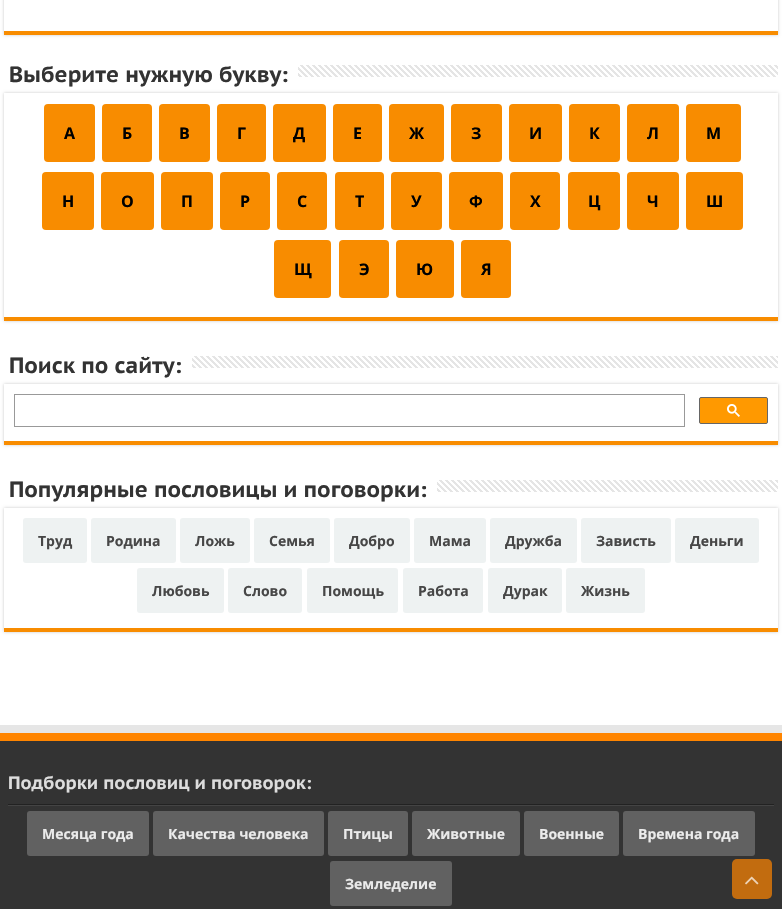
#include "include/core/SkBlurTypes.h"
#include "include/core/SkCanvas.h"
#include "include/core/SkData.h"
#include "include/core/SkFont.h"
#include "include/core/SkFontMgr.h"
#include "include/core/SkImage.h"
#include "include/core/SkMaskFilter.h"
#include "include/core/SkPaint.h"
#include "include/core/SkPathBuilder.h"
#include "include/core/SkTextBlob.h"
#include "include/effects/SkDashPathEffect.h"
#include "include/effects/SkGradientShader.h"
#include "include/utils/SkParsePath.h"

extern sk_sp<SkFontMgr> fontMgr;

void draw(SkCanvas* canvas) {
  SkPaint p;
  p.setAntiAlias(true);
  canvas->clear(SK_ColorWHITE);
  canvas->save();
  canvas->clipPath(SkPathBuilder(SkPathFillType::kEvenOdd).moveTo(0, 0).lineTo(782, 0).lineTo(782, 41).lineTo(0, 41).close().moveTo(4, -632).lineTo(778, -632).lineTo(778, 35).lineTo(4, 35).close().detach(), true);
  p.setColor(SkColorSetRGB(202, 202, 202));
  p.setMaskFilter(SkMaskFilter::MakeBlur(kNormal_SkBlurStyle, 1.5f));
  canvas->drawRect(SkRect::MakeLTRB(4, -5, 778, 35), p);
  p.setMaskFilter(nullptr);
  canvas->restore();
  p.setColor(SkColorSetRGB(248, 140, 0));
  canvas->drawRect(SkRect::MakeLTRB(4, 31, 778, 35), p);
  canvas->drawImageRect(SkImages::DeferredFromEncodedData(SkData::MakeFromFileName("images/1.png")), SkRect::MakeLTRB(298, 65, 778, 77), SkSamplingOptions());
  canvas->save();
  canvas->clipPath(SkPathBuilder(SkPathFillType::kEvenOdd).moveTo(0, 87).lineTo(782, 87).lineTo(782, 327).lineTo(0, 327).close().moveTo(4, 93).lineTo(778, 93).lineTo(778, 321).lineTo(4, 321).close().detach(), true);
  p.setColor(SkColorSetRGB(202, 202, 202));
  p.setMaskFilter(SkMaskFilter::MakeBlur(kNormal_SkBlurStyle, 1.5f));
  canvas->drawRect(SkRect::MakeLTRB(4, 93, 778, 321), p);
  p.setMaskFilter(nullptr);
  canvas->restore();
  p.setColor(SkColorSetRGB(248, 140, 0));
  canvas->drawRect(SkRect::MakeLTRB(4, 317, 778, 321), p);
  canvas->drawRoundRect(SkRect::MakeLTRB(44, 104, 95, 162), 4, 4, p);
  canvas->drawRoundRect(SkRect::MakeLTRB(102, 104, 152, 162), 4, 4, p);
  canvas->drawRoundRect(SkRect::MakeLTRB(159, 104, 210, 162), 4, 4, p);
  canvas->drawRoundRect(SkRect::MakeLTRB(217, 104, 266, 162), 4, 4, p);
  canvas->drawRoundRect(SkRect::MakeLTRB(273, 104, 326, 162), 4, 4, p);
  canvas->drawRoundRect(SkRect::MakeLTRB(333, 104, 382, 162), 4, 4, p);
  canvas->drawRoundRect(SkRect::MakeLTRB(389, 104, 444, 162), 4, 4, p);
  canvas->drawRoundRect(SkRect::MakeLTRB(451, 104, 502, 162), 4, 4, p);
  canvas->drawRoundRect(SkRect::MakeLTRB(509, 104, 562, 162), 4, 4, p);
  canvas->drawRoundRect(SkRect::MakeLTRB(569, 104, 620, 162), 4, 4, p);
  canvas->drawRoundRect(SkRect::MakeLTRB(627, 104, 679, 162), 4, 4, p);
  canvas->drawRoundRect(SkRect::MakeLTRB(686, 104, 741, 162), 4, 4, p);
  canvas->drawRoundRect(SkRect::MakeLTRB(42, 172, 94, 230), 4, 4, p);
  canvas->drawRoundRect(SkRect::MakeLTRB(101, 172, 154, 230), 4, 4, p);
  canvas->drawRoundRect(SkRect::MakeLTRB(161, 172, 213, 230), 4, 4, p);
  canvas->drawRoundRect(SkRect::MakeLTRB(220, 172, 270, 230), 4, 4, p);
  canvas->drawRoundRect(SkRect::MakeLTRB(277, 172, 327, 230), 4, 4, p);
  canvas->drawRoundRect(SkRect::MakeLTRB(335, 172, 384, 230), 4, 4, p);
  canvas->drawRoundRect(SkRect::MakeLTRB(391, 172, 442, 230), 4, 4, p);
  canvas->drawRoundRect(SkRect::MakeLTRB(449, 172, 503, 230), 4, 4, p);
  canvas->drawRoundRect(SkRect::MakeLTRB(510, 172, 560, 230), 4, 4, p);
  canvas->drawRoundRect(SkRect::MakeLTRB(568, 172, 620, 230), 4, 4, p);
  canvas->drawRoundRect(SkRect::MakeLTRB(627, 172, 679, 230), 4, 4, p);
  canvas->drawRoundRect(SkRect::MakeLTRB(686, 172, 743, 230), 4, 4, p);
  canvas->drawRoundRect(SkRect::MakeLTRB(274, 240, 331, 298), 4, 4, p);
  canvas->drawRoundRect(SkRect::MakeLTRB(339, 240, 389, 298), 4, 4, p);
  canvas->drawRoundRect(SkRect::MakeLTRB(396, 240, 454, 298), 4, 4, p);
  canvas->drawRoundRect(SkRect::MakeLTRB(461, 240, 511, 298), 4, 4, p);
  canvas->drawImageRect(SkImages::DeferredFromEncodedData(SkData::MakeFromFileName("images/2.png")), SkRect::MakeLTRB(192, 356, 778, 368), SkSamplingOptions());
  canvas->save();
  canvas->clipPath(SkPathBuilder(SkPathFillType::kEvenOdd).moveTo(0, 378).lineTo(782, 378).lineTo(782, 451).lineTo(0, 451).close().moveTo(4, 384).lineTo(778, 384).lineTo(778, 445).lineTo(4, 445).close().detach(), true);
  p.setColor(SkColorSetRGB(202, 202, 202));
  p.setMaskFilter(SkMaskFilter::MakeBlur(kNormal_SkBlurStyle, 1.5f));
  canvas->drawRect(SkRect::MakeLTRB(4, 384, 778, 445), p);
  p.setMaskFilter(nullptr);
  canvas->restore();
  p.setColor(SkColorSetRGB(248, 140, 0));
  canvas->drawRect(SkRect::MakeLTRB(4, 441, 778, 445), p);
  p.setStyle(SkPaint::kStroke_Style);
  p.setStrokeWidth(1);
  p.setColor(SkColorSetRGB(153, 153, 153));
  canvas->drawRect(SkRect::MakeLTRB(14.5f, 394.5f, 684.5f, 426.5f), p);
  p.setStyle(SkPaint::kFill_Style);
  p.setColor(SkColorSetRGB(255, 153, 0));
  canvas->drawRoundRect(SkRect::MakeLTRB(699.5f, 397.5f, 767.5f, 423.5f), 1.5f, 1.5f, p);
  p.setStyle(SkPaint::kStroke_Style);
  p.setColor(SkColorSetRGB(102, 102, 102));
  canvas->drawRoundRect(SkRect::MakeLTRB(699.5f, 397.5f, 767.5f, 423.5f), 1.5f, 1.5f, p);
  canvas->drawImageRect(SkImages::DeferredFromEncodedData(SkData::MakeFromFileName("images/3.png")), SkRect::MakeLTRB(727, 404, 740, 417), SkSamplingOptions());
  canvas->drawImageRect(SkImages::DeferredFromEncodedData(SkData::MakeFromFileName("images/4.png")), SkRect::MakeLTRB(437, 480, 778, 492), SkSamplingOptions());
  canvas->save();
  canvas->clipPath(SkPathBuilder(SkPathFillType::kEvenOdd).moveTo(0, 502).lineTo(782, 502).lineTo(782, 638).lineTo(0, 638).close().moveTo(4, 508).lineTo(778, 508).lineTo(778, 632).lineTo(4, 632).close().detach(), true);
  p.setStyle(SkPaint::kFill_Style);
  p.setColor(SkColorSetRGB(202, 202, 202));
  p.setMaskFilter(SkMaskFilter::MakeBlur(kNormal_SkBlurStyle, 1.5f));
  canvas->drawRect(SkRect::MakeLTRB(4, 508, 778, 632), p);
  p.setMaskFilter(nullptr);
  canvas->restore();
  p.setColor(SkColorSetRGB(248, 140, 0));
  canvas->drawRect(SkRect::MakeLTRB(4, 628, 778, 632), p);
  p.setColor(SkColorSetRGB(238, 242, 242));
  canvas->drawRoundRect(SkRect::MakeLTRB(23, 518, 87, 563), 3, 3, p);
  canvas->drawRoundRect(SkRect::MakeLTRB(91, 518, 176, 563), 3, 3, p);
  canvas->drawRoundRect(SkRect::MakeLTRB(180, 518, 250, 563), 3, 3, p);
  canvas->drawRoundRect(SkRect::MakeLTRB(254, 518, 330, 563), 3, 3, p);
  canvas->drawRoundRect(SkRect::MakeLTRB(334, 518, 410, 563), 3, 3, p);
  canvas->drawRoundRect(SkRect::MakeLTRB(414, 518, 486, 563), 3, 3, p);
  canvas->drawRoundRect(SkRect::MakeLTRB(490, 518, 577, 563), 3, 3, p);
  canvas->drawRoundRect(SkRect::MakeLTRB(581, 518, 671, 563), 3, 3, p);
  canvas->drawRoundRect(SkRect::MakeLTRB(675, 518, 759, 563), 3, 3, p);
  canvas->drawRoundRect(SkRect::MakeLTRB(137, 568, 224, 613), 3, 3, p);
  canvas->drawRoundRect(SkRect::MakeLTRB(228, 568, 302, 613), 3, 3, p);
  canvas->drawRoundRect(SkRect::MakeLTRB(307, 568, 398, 613), 3, 3, p);
  canvas->drawRoundRect(SkRect::MakeLTRB(403, 568, 483, 613), 3, 3, p);
  canvas->drawRoundRect(SkRect::MakeLTRB(488, 568, 562, 613), 3, 3, p);
  canvas->drawRoundRect(SkRect::MakeLTRB(566, 568, 645, 613), 3, 3, p);
  p.setColor(SkColorSetRGB(230, 230, 230));
  canvas->drawRect(SkRect::MakeLTRB(0, 725, 782, 733), p);
  p.setColor(SkColorSetRGB(51, 51, 51));
  canvas->drawRect(SkRect::MakeLTRB(0, 741, 782, 909), p);
  p.setColor(SkColorSetRGB(255, 133, 0));
  canvas->drawRect(SkRect::MakeLTRB(0, 733, 782, 741), p);
  p.setColor(SkColorSetRGB(34, 34, 34));
  canvas->drawRect(SkRect::MakeLTRB(8, 804, 774, 805), p);
  p.setColor(SkColorSetRGB(68, 68, 68));
  canvas->drawRect(SkRect::MakeLTRB(8, 805, 774, 806), p);
  p.setColor(SkColorSetRGB(97, 97, 97));
  canvas->drawRoundRect(SkRect::MakeLTRB(27, 811, 149, 856), 3, 3, p);
  canvas->drawRoundRect(SkRect::MakeLTRB(153, 811, 324, 856), 3, 3, p);
  canvas->drawRoundRect(SkRect::MakeLTRB(328, 811, 408, 856), 3, 3, p);
  canvas->drawRoundRect(SkRect::MakeLTRB(412, 811, 520, 856), 3, 3, p);
  canvas->drawRoundRect(SkRect::MakeLTRB(524, 811, 619, 856), 3, 3, p);
  canvas->drawRoundRect(SkRect::MakeLTRB(623, 811, 755, 856), 3, 3, p);
  canvas->drawRoundRect(SkRect::MakeLTRB(330, 861, 452, 906), 3, 3, p);
  p.setColor(SkColorSetRGB(194, 108, 15));
  canvas->drawRoundRect(SkRect::MakeLTRB(732, 859, 772, 899), 5, 5, p);
  canvas->drawImageRect(SkImages::DeferredFromEncodedData(SkData::MakeFromFileName("images/5.png")), SkRect::MakeLTRB(745, 876, 759, 885), SkSamplingOptions());
  SkFont font1(fontMgr->matchFamilyStyle("PT Sans Caption", SkFontStyle::Bold()), 22);
  font1.setSubpixel(true);
  p.setColor(SkColorSetRGB(51, 51, 51));
  canvas->drawString("Выберите нужную букву:", 9, 82, font1, p);
  SkFont font2(fontMgr->matchFamilyStyle("Open Sans", SkFontStyle::Bold()), 16);
  font2.setSubpixel(true);
  p.setColor(SK_ColorBLACK);
  canvas->drawString("А", 64, 139, font2, p);
  canvas->drawString("Б", 122, 139, font2, p);
  canvas->drawString("В", 179, 139, font2, p);
  canvas->drawString("Г", 237, 139, font2, p);
  canvas->drawString("Д", 293, 139, font2, p);
  canvas->drawString("Е", 353, 139, font2, p);
  canvas->drawString("Ж", 409, 139, font2, p);
  canvas->drawString("З", 471, 139, font2, p);
  canvas->drawString("И", 529, 139, font2, p);
  canvas->drawString("К", 589, 139, font2, p);
  canvas->drawString("Л", 647, 139, font2, p);
  canvas->drawString("М", 706, 139, font2, p);
  canvas->drawString("Н", 62, 207, font2, p);
  canvas->drawString("О", 121, 207, font2, p);
  canvas->drawString("П", 181, 207, font2, p);
  canvas->drawString("Р", 240, 207, font2, p);
  canvas->drawString("С", 297, 207, font2, p);
  canvas->drawString("Т", 355, 207, font2, p);
  canvas->drawString("У", 411, 207, font2, p);
  canvas->drawString("Ф", 469, 207, font2, p);
  canvas->drawString("Х", 530, 207, font2, p);
  canvas->drawString("Ц", 588, 207, font2, p);
  canvas->drawString("Ч", 647, 207, font2, p);
  canvas->drawString("Ш", 706, 207, font2, p);
  canvas->drawString("Щ", 294, 275, font2, p);
  canvas->drawString("Э", 359, 275, font2, p);
  canvas->drawString("Ю", 416, 275, font2, p);
  canvas->drawString("Я", 481, 275, font2, p);
  p.setColor(SkColorSetRGB(51, 51, 51));
  canvas->drawString("Поиск по сайту:", 9, 373, font1, p);
  canvas->drawString("Популярные пословицы и поговорки:", 9, 497, font1, p);
  SkFont font3(fontMgr->matchFamilyStyle("Open Sans", SkFontStyle::Bold()), 14);
  font3.setSubpixel(true);
  p.setColor(SkColorSetRGB(71, 71, 71));
  canvas->drawString("Труд", 38, 546, font3, p);
  canvas->drawString("Родина", 106, 546, font3, p);
  canvas->drawString("Ложь", 195, 546, font3, p);
  canvas->drawString("Семья", 269, 546, font3, p);
  canvas->drawString("Добро", 349, 546, font3, p);
  canvas->drawString("Мама", 429, 546, font3, p);
  canvas->drawString("Дружба", 505, 546, font3, p);
  canvas->drawString("Зависть", 596, 546, font3, p);
  canvas->drawString("Деньги", 690, 546, font3, p);
  canvas->drawString("Любовь", 152, 596, font3, p);
  canvas->drawString("Слово", 243, 596, font3, p);
  canvas->drawString("Помощь", 322, 596, font3, p);
  canvas->drawString("Работа", 418, 596, font3, p);
  canvas->drawString("Дурак", 503, 596, font3, p);
  canvas->drawString("Жизнь", 581, 596, font3, p);
  SkFont font4(fontMgr->matchFamilyStyle("PT Sans Caption", SkFontStyle::Bold()), 18);
  font4.setSubpixel(true);
  p.setColor(SkColorSetRGB(221, 221, 221));
  canvas->drawString("Подборки пословиц и поговорок:", 8, 789, font4, p);
  p.setColor(SkColorSetRGB(235, 235, 235));
  canvas->drawString("Месяца года", 42, 839, font3, p);
  canvas->drawString("Качества человека", 168, 839, font3, p);
  canvas->drawString("Птицы", 343, 839, font3, p);
  canvas->drawString("Животные", 427, 839, font3, p);
  canvas->drawString("Военные", 539, 839, font3, p);
  canvas->drawString("Времена года", 638, 839, font3, p);
  canvas->drawString("Земледелие", 345, 889, font3, p);
}
